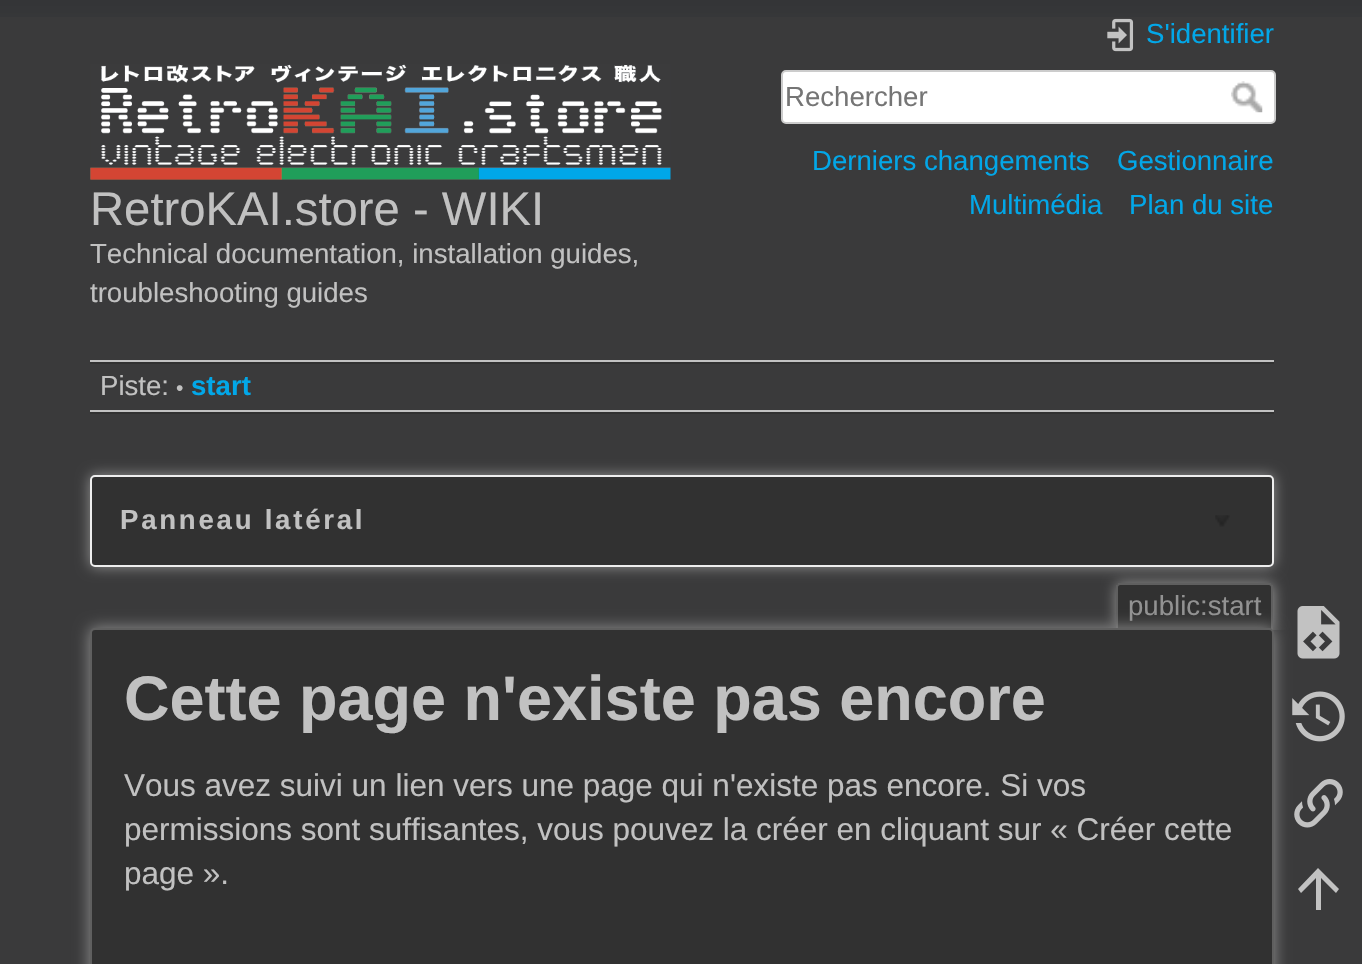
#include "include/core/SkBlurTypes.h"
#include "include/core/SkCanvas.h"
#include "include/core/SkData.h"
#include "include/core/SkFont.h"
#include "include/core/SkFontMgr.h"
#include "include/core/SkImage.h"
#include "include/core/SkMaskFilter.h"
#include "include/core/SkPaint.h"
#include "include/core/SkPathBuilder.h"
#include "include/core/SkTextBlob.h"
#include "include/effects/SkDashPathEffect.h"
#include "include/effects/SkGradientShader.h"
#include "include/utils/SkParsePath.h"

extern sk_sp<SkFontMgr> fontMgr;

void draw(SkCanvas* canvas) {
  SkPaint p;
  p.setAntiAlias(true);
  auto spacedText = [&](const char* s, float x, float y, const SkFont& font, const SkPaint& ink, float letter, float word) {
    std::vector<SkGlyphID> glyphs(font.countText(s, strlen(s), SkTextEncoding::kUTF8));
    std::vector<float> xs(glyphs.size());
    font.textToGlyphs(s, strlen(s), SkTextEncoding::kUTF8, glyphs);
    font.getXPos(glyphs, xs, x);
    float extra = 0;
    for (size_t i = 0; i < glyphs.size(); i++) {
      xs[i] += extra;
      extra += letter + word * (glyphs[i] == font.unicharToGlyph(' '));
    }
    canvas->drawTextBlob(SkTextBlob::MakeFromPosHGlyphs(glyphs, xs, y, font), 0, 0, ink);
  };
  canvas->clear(SkColorSetRGB(58, 58, 59));
  canvas->drawImageRect(SkImages::DeferredFromEncodedData(SkData::MakeFromFileName("images/1.png")), SkRect::MakeLTRB(0, 0, 1362, 17), SkSamplingOptions());
  canvas->drawImageRect(SkImages::DeferredFromEncodedData(SkData::MakeFromFileName("images/2.png")), SkRect::MakeLTRB(1107, 18, 1134, 52), SkSamplingOptions());
  p.setColor(SK_ColorWHITE);
  canvas->drawRoundRect(SkRect::MakeLTRB(782, 71, 1275, 123), 4, 4, p);
  p.setStyle(SkPaint::kStroke_Style);
  p.setStrokeWidth(2);
  p.setColor(SkColorSetRGB(204, 204, 204));
  canvas->drawRoundRect(SkRect::MakeLTRB(782, 71, 1275, 123), 4, 4, p);
  canvas->drawImageRect(SkImages::DeferredFromEncodedData(SkData::MakeFromFileName("images/3.png")), SkRect::MakeLTRB(1231, 81, 1263, 113), SkSamplingOptions());
  canvas->drawImageRect(SkImages::DeferredFromEncodedData(SkData::MakeFromFileName("images/4.png")), SkRect::MakeLTRB(90, 64, 671, 180), SkSamplingOptions());
  p.setStyle(SkPaint::kFill_Style);
  p.setColor(SkColorSetRGB(194, 194, 194));
  canvas->drawRect(SkRect::MakeLTRB(90, 360, 1274, 362), p);
  p.setColor(SkColorSetRGB(49, 49, 49));
  canvas->drawRect(SkRect::MakeLTRB(90, 412, 1274, 414), p);
  canvas->drawRect(SkRect::MakeLTRB(90, 362, 1274, 364), p);
  p.setColor(SkColorSetRGB(194, 194, 194));
  canvas->drawRect(SkRect::MakeLTRB(90, 410, 1274, 412), p);
  canvas->save();
  canvas->clipRect(SkRect::MakeLTRB(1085, 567, 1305, 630));
  p.setColor(SkColorSetRGB(146, 146, 146));
  p.setMaskFilter(SkMaskFilter::MakeBlur(kNormal_SkBlurStyle, 7));
  canvas->drawRoundRect(SkRect::MakeLTRB(1116, 583, 1274, 630), 5, 5, p);
  p.setMaskFilter(nullptr);
  canvas->restore();
  p.setColor(SkColorSetRGB(49, 49, 49));
  canvas->drawPath(SkPathBuilder().moveTo(1120, 585).lineTo(1269, 585).cubicTo(1270, 585, 1271, 586, 1271, 587).lineTo(1271, 630).lineTo(1118, 630).lineTo(1118, 587).cubicTo(1118, 586, 1119, 585, 1120, 585).close().detach(), p);
  p.setColor(SkColorSetRGB(95, 95, 95));
  canvas->drawRect(SkRect::MakeLTRB(1118, 583, 1271, 585), p);
  canvas->drawRect(SkRect::MakeLTRB(1271, 585, 1273, 630), p);
  canvas->drawRect(SkRect::MakeLTRB(1116, 585, 1118, 630), p);
  p.setColor(SkColorSetRGB(146, 146, 146));
  p.setMaskFilter(SkMaskFilter::MakeBlur(kNormal_SkBlurStyle, 7));
  canvas->drawRoundRect(SkRect::MakeLTRB(90, 475, 1274, 567), 5, 5, p);
  p.setMaskFilter(nullptr);
  p.setColor(SkColorSetRGB(49, 49, 49));
  canvas->drawRoundRect(SkRect::MakeLTRB(91, 476, 1273, 566), 4, 4, p);
  p.setStyle(SkPaint::kStroke_Style);
  p.setColor(SkColorSetRGB(238, 238, 238));
  canvas->drawRoundRect(SkRect::MakeLTRB(91, 476, 1273, 566), 4, 4, p);
  canvas->drawImageRect(SkImages::DeferredFromEncodedData(SkData::MakeFromFileName("images/5.png")), SkRect::MakeLTRB(1215, 515, 1230, 527), SkSamplingOptions());
  p.setStyle(SkPaint::kFill_Style);
  p.setColor(SkColorSetRGB(146, 146, 146));
  p.setMaskFilter(SkMaskFilter::MakeBlur(kNormal_SkBlurStyle, 8));
  canvas->drawRoundRect(SkRect::MakeLTRB(90, 628, 1274, 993), 5, 5, p);
  p.setMaskFilter(nullptr);
  p.setColor(SkColorSetRGB(49, 49, 49));
  canvas->drawRoundRect(SkRect::MakeLTRB(91, 629, 1273, 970), 4, 4, p);
  p.setStyle(SkPaint::kStroke_Style);
  p.setColor(SkColorSetRGB(95, 95, 95));
  canvas->drawRoundRect(SkRect::MakeLTRB(91, 629, 1273, 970), 4, 4, p);
  canvas->drawImageRect(SkImages::DeferredFromEncodedData(SkData::MakeFromFileName("images/6.png")), SkRect::MakeLTRB(1297, 606, 1340, 659), SkSamplingOptions());
  canvas->drawImageRect(SkImages::DeferredFromEncodedData(SkData::MakeFromFileName("images/7.png")), SkRect::MakeLTRB(1292, 691, 1345, 742), SkSamplingOptions());
  canvas->drawImageRect(SkImages::DeferredFromEncodedData(SkData::MakeFromFileName("images/8.png")), SkRect::MakeLTRB(1294, 779, 1343, 828), SkSamplingOptions());
  p.setStyle(SkPaint::kFill_Style);
  p.setColor(SkColorSetRGB(194, 194, 194));
  canvas->drawPath(SkPathBuilder().moveTo(1321, 910).lineTo(1316, 910).lineTo(1316, 878).lineTo(1301, 893).lineTo(1298, 889).lineTo(1318, 868).lineTo(1339, 889).lineTo(1336, 893).lineTo(1321, 878).close().detach(), p);
  SkFont font1(fontMgr->matchFamilyStyle("Liberation Sans", SkFontStyle::Normal()), 27.6f);
  font1.setSubpixel(true);
  p.setColor(SkColorSetRGB(2, 167, 232));
  canvas->drawString("S'identifier", 1146, 43, font1, p);
  p.setColor(SkColorSetRGB(117, 117, 117));
  canvas->drawString("Rechercher", 785, 106, font1, p);
  p.setColor(SkColorSetRGB(2, 167, 232));
  canvas->drawString("Derniers changements", 812, 170, font1, p);
  canvas->drawString("Gestionnaire", 1117, 170, font1, p);
  canvas->drawString("Multimédia", 969, 214, font1, p);
  canvas->drawString("Plan du site", 1129, 214, font1, p);
  SkFont font2(fontMgr->matchFamilyStyle("Liberation Sans", SkFontStyle::Normal()), 47.25f);
  font2.setSubpixel(true);
  p.setColor(SkColorSetRGB(193, 193, 193));
  canvas->drawString("RetroKAI.store - WIKI", 90, 225, font2, p);
  canvas->drawString("Technical documentation, installation guides,", 90, 263, font1, p);
  canvas->drawString("troubleshooting guides", 90, 302, font1, p);
  canvas->drawString("Piste:", 100, 395, font1, p);
  SkFont font3(fontMgr->matchFamilyStyle("Liberation Sans", SkFontStyle::Normal()), 21);
  font3.setSubpixel(true);
  canvas->drawString("•", 176, 395, font3, p);
  SkFont font4(fontMgr->matchFamilyStyle("Liberation Sans", SkFontStyle::Bold()), 27.6f);
  font4.setSubpixel(true);
  p.setColor(SkColorSetRGB(2, 167, 232));
  canvas->drawString("start", 191, 395, font4, p);
  p.setColor(SkColorSetRGB(193, 193, 193));
  spacedText("Panneau latéral", 120, 529, font4, p, 2.75f, 0);
  p.setColor(SkColorSetRGB(146, 146, 146));
  canvas->drawString("public:start", 1128, 615, font1, p);
  SkFont font5(fontMgr->matchFamilyStyle("Liberation Sans", SkFontStyle::Bold()), 63);
  font5.setSubpixel(true);
  p.setColor(SkColorSetRGB(193, 193, 193));
  canvas->drawString("Cette page n'existe pas encore", 124, 720, font5, p);
  SkFont font6(fontMgr->matchFamilyStyle("Liberation Sans", SkFontStyle::Normal()), 31.5f);
  font6.setSubpixel(true);
  canvas->drawString("Vous avez suivi un lien vers une page qui n'existe pas encore. Si vos", 124, 796, font6, p);
  canvas->drawString("permissions sont suffisantes, vous pouvez la créer en cliquant sur « Créer cette", 124, 840, font6, p);
  canvas->drawString("page ».", 124, 884, font6, p);
}
